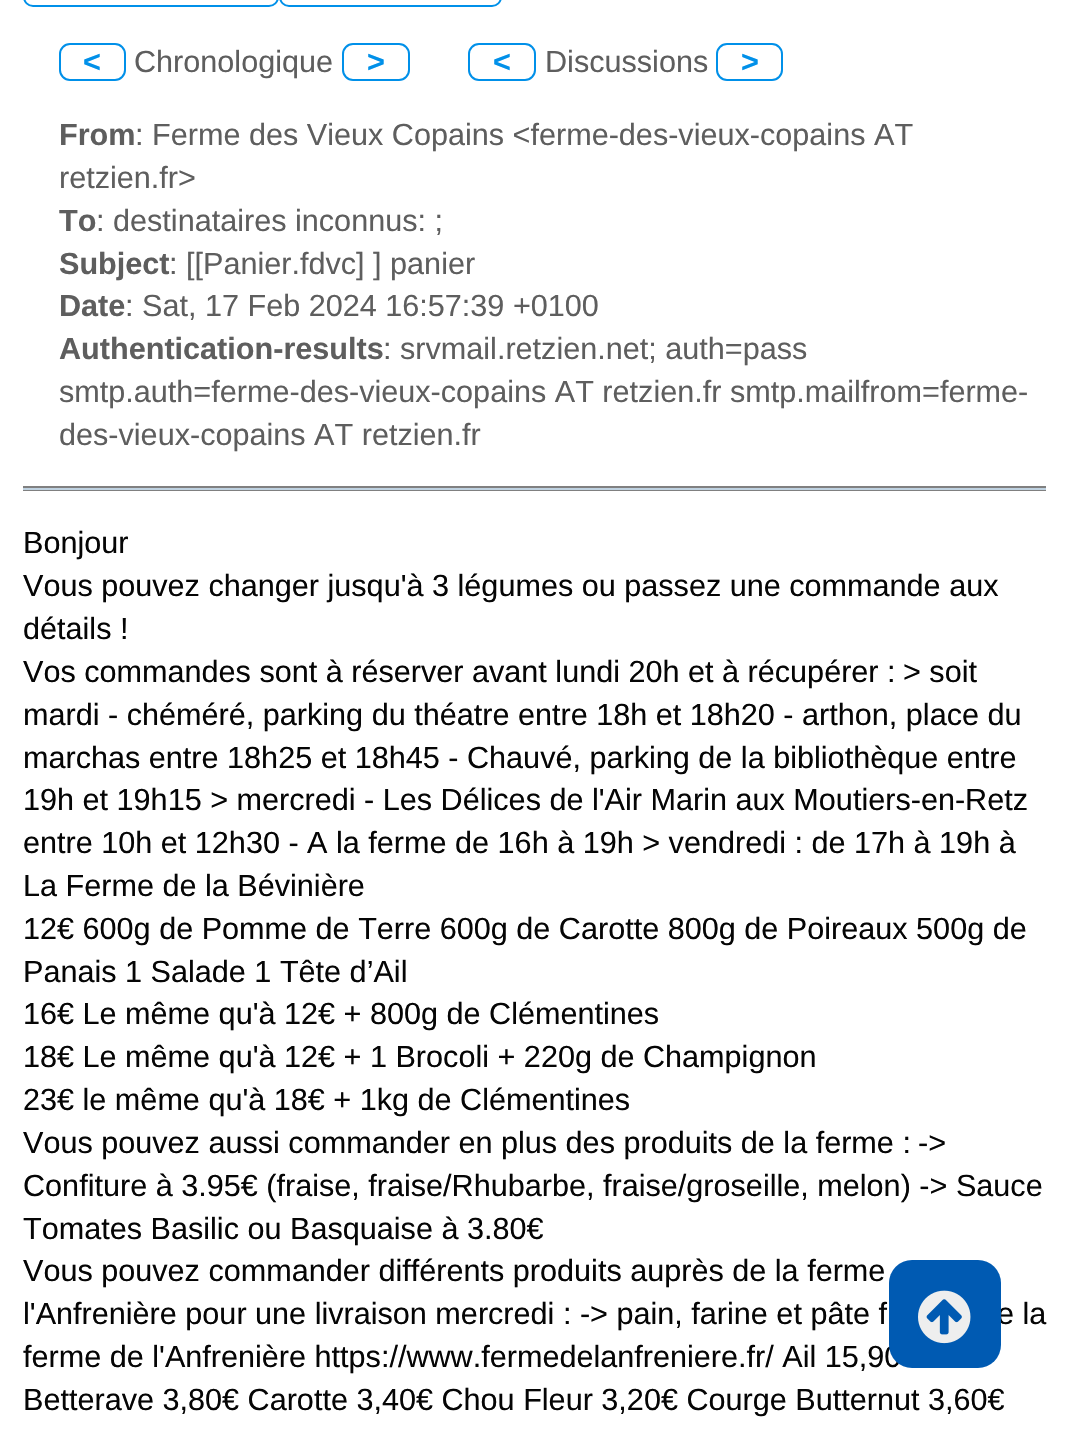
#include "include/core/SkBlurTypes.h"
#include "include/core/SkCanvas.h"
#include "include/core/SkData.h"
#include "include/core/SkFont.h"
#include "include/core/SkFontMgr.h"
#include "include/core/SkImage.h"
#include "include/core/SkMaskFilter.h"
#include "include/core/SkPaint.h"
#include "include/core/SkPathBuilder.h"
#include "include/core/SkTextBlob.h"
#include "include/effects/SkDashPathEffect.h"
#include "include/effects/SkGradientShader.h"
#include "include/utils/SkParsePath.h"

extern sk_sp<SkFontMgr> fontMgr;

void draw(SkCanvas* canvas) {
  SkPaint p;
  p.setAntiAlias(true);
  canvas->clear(SK_ColorWHITE);
  p.setStyle(SkPaint::kStroke_Style);
  p.setStrokeWidth(2);
  p.setColor(SkColorSetRGB(0, 144, 233));
  canvas->drawRoundRect(SkRect::MakeLTRB(24, -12, 278, 6), 10, 10, p);
  canvas->drawRoundRect(SkRect::MakeLTRB(280, -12, 501, 6), 10, 10, p);
  canvas->drawRoundRect(SkRect::MakeLTRB(60, 44, 125, 80), 10, 10, p);
  canvas->drawRoundRect(SkRect::MakeLTRB(343, 44, 409, 80), 10, 10, p);
  canvas->drawRoundRect(SkRect::MakeLTRB(469, 44, 535, 80), 10, 10, p);
  canvas->drawRoundRect(SkRect::MakeLTRB(717, 44, 782, 80), 10, 10, p);
  p.setStyle(SkPaint::kFill_Style);
  p.setColor(SkColorSetRGB(128, 128, 128));
  canvas->drawRect(SkRect::MakeLTRB(23, 486, 1046, 491), p);
  p.setColor(SkColorSetRGB(191, 210, 225));
  canvas->drawRect(SkRect::MakeLTRB(23, 488, 1046, 490), p);
  SkFont font1(fontMgr->matchFamilyStyle("Liberation Sans", SkFontStyle::Bold()), 30.6f);
  font1.setSubpixel(true);
  p.setColor(SkColorSetRGB(0, 144, 233));
  canvas->drawString("<", 83, 72, font1, p);
  SkFont font2(fontMgr->matchFamilyStyle("Liberation Sans", SkFontStyle::Normal()), 30.6f);
  font2.setSubpixel(true);
  p.setColor(SkColorSetRGB(94, 94, 94));
  canvas->drawString("Chronologique", 134, 72, font2, p);
  p.setColor(SkColorSetRGB(0, 144, 233));
  canvas->drawString(">", 367, 72, font1, p);
  canvas->drawString("<", 493, 72, font1, p);
  p.setColor(SkColorSetRGB(94, 94, 94));
  canvas->drawString("Discussions", 545, 72, font2, p);
  p.setColor(SkColorSetRGB(0, 144, 233));
  canvas->drawString(">", 741, 72, font1, p);
  p.setColor(SkColorSetRGB(94, 94, 94));
  canvas->drawString("From", 59, 145, font1, p);
  canvas->drawString(": Ferme des Vieux Copains <ferme-des-vieux-copains AT", 135, 145, font2, p);
  canvas->drawString("retzien.fr>", 59, 188, font2, p);
  canvas->drawString("To", 59, 231, font1, p);
  canvas->drawString(": destinataires inconnus: ;", 96, 231, font2, p);
  canvas->drawString("Subject", 59, 274, font1, p);
  canvas->drawString(": [[Panier.fdvc] ] panier", 169, 274, font2, p);
  canvas->drawString("Date", 59, 316, font1, p);
  canvas->drawString(": Sat, 17 Feb 2024 16:57:39 +0100", 125, 316, font2, p);
  canvas->drawString("Authentication-results", 59, 359, font1, p);
  canvas->drawString(": srvmail.retzien.net; auth=pass", 383, 359, font2, p);
  canvas->drawString("smtp.auth=ferme-des-vieux-copains AT retzien.fr smtp.mailfrom=ferme-", 59, 402, font2, p);
  canvas->drawString("des-vieux-copains AT retzien.fr", 59, 445, font2, p);
  p.setColor(SkColorSetRGB(5, 5, 5));
  canvas->drawString("Bonjour", 23, 553, font2, p);
  canvas->drawString("Vous pouvez changer jusqu'à 3 légumes ou passez une commande aux", 23, 596, font2, p);
  canvas->drawString("détails !", 23, 639, font2, p);
  canvas->drawString("Vos commandes sont à réserver avant lundi 20h et à récupérer :", 23, 682, font2, p);
  canvas->drawString("> soit", 903, 682, font2, p);
  canvas->drawString("mardi - chéméré, parking du théatre entre 18h et 18h20 - arthon, place du", 23, 725, font2, p);
  canvas->drawString("marchas entre 18h25 et 18h45 - Chauvé, parking de la bibliothèque entre", 23, 768, font2, p);
  canvas->drawString("19h et 19h15 > mercredi - Les Délices de l'Air Marin aux Moutiers-en-Retz", 23, 810, font2, p);
  canvas->drawString("entre 10h et 12h30 - A la ferme de 16h à 19h > vendredi : de 17h à 19h à", 23, 853, font2, p);
  canvas->drawString("La Ferme de la Bévinière", 23, 896, font2, p);
  canvas->drawString("12€ 600g de Pomme de Terre 600g de Carotte 800g de Poireaux 500g de", 23, 939, font2, p);
  canvas->drawString("Panais 1 Salade 1 Tête d’Ail", 23, 982, font2, p);
  canvas->drawString("16€ Le même qu'à 12€ + 800g de Clémentines", 23, 1024, font2, p);
  canvas->drawString("18€ Le même qu'à 12€ + 1 Brocoli + 220g de Champignon", 23, 1067, font2, p);
  canvas->drawString("23€ le même qu'à 18€ + 1kg de Clémentines", 23, 1110, font2, p);
  canvas->drawString("Vous pouvez aussi commander en plus des produits de la ferme :", 23, 1153, font2, p);
  canvas->drawString("->", 918, 1153, font2, p);
  canvas->drawString("Confiture à 3.95€ (fraise, fraise/Rhubarbe, fraise/groseille, melon) -> Sauce", 23, 1196, font2, p);
  canvas->drawString("Tomates Basilic ou Basquaise à 3.80€", 23, 1239, font2, p);
  canvas->drawString("Vous pouvez commander différents produits auprès de la ferme", 23, 1281, font2, p);
  canvas->drawString("l'Anfrenière pour une livraison mercredi : -> pain, farine et pâte f", 23, 1324, font2, p);
  canvas->drawString("e la", 997, 1324, font2, p);
  canvas->drawString("ferme de l'Anfrenière https://www.fermedelanfreniere.fr/ Ail 15,90", 23, 1367, font2, p);
  canvas->drawString("Betterave 3,80€ Carotte 3,40€ Chou Fleur 3,20€ Courge Butternut 3,60€", 23, 1410, font2, p);
  p.setColor(SkColorSetRGB(0, 90, 178));
  canvas->drawRoundRect(SkRect::MakeLTRB(889, 1260, 1001, 1368), 23, 23, p);
  canvas->drawImageRect(SkImages::DeferredFromEncodedData(SkData::MakeFromFileName("images/1.png")), SkRect::MakeLTRB(918, 1290, 971, 1344), SkSamplingOptions());
}
